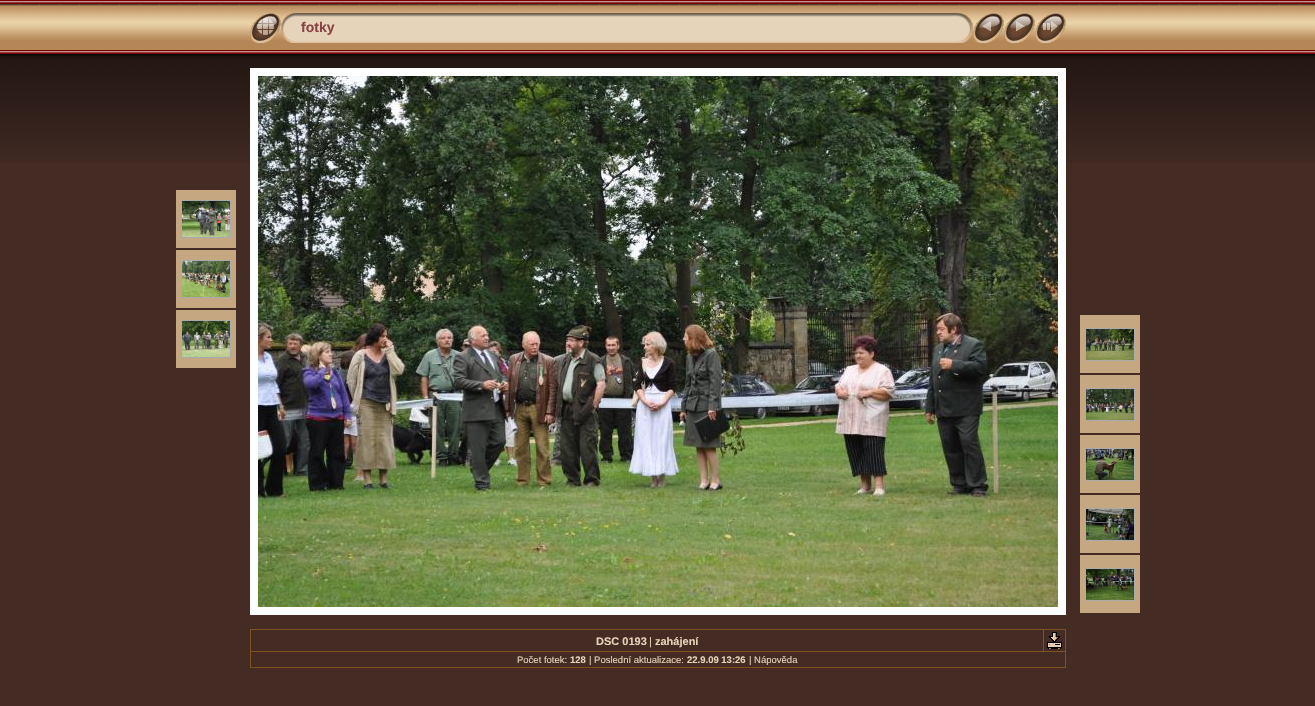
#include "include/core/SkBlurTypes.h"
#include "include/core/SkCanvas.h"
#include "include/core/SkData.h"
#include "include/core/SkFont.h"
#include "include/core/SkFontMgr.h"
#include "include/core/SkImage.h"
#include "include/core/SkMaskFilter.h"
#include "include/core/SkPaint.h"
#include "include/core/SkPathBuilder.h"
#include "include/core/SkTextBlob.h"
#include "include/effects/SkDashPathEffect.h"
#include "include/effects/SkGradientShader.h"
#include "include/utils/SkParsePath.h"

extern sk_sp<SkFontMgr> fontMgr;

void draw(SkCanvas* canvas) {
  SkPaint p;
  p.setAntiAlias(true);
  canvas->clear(SkColorSetRGB(68, 44, 37));
  canvas->drawImageRect(SkImages::DeferredFromEncodedData(SkData::MakeFromFileName("images/1.png")), SkRect::MakeLTRB(0, 0, 1315, 163), SkSamplingOptions());
  canvas->drawImageRect(SkImages::DeferredFromEncodedData(SkData::MakeFromFileName("images/2.png")), SkRect::MakeLTRB(250, 13, 281, 43), SkSamplingOptions());
  canvas->drawImageRect(SkImages::DeferredFromEncodedData(SkData::MakeFromFileName("images/3.png")), SkRect::MakeLTRB(281, 13, 301, 43), SkSamplingOptions());
  canvas->drawImageRect(SkImages::DeferredFromEncodedData(SkData::MakeFromFileName("images/4.png")), SkRect::MakeLTRB(301, 13, 953, 43), SkSamplingOptions());
  canvas->drawImageRect(SkImages::DeferredFromEncodedData(SkData::MakeFromFileName("images/5.png")), SkRect::MakeLTRB(953, 13, 973, 43), SkSamplingOptions());
  canvas->drawImageRect(SkImages::DeferredFromEncodedData(SkData::MakeFromFileName("images/6.png")), SkRect::MakeLTRB(973, 13, 1004, 43), SkSamplingOptions());
  canvas->drawImageRect(SkImages::DeferredFromEncodedData(SkData::MakeFromFileName("images/7.png")), SkRect::MakeLTRB(1004, 13, 1035, 43), SkSamplingOptions());
  canvas->drawImageRect(SkImages::DeferredFromEncodedData(SkData::MakeFromFileName("images/8.png")), SkRect::MakeLTRB(1035, 13, 1066, 43), SkSamplingOptions());
  p.setColor(SkColorSetRGB(197, 168, 129));
  canvas->drawRect(SkRect::MakeLTRB(176, 190, 236, 248), p);
  p.setStyle(SkPaint::kStroke_Style);
  p.setStrokeWidth(1);
  p.setColor(SkColorSetRGB(170, 170, 170));
  canvas->drawRect(SkRect::MakeLTRB(181.5f, 200.5f, 230.5f, 237.5f), p);
  canvas->drawImageRect(SkImages::DeferredFromEncodedData(SkData::MakeFromFileName("images/9.png")), SkRect::MakeLTRB(182, 201, 230, 237), SkSamplingOptions());
  p.setStyle(SkPaint::kFill_Style);
  p.setColor(SkColorSetRGB(197, 168, 129));
  canvas->drawRect(SkRect::MakeLTRB(176, 250, 236, 308), p);
  p.setStyle(SkPaint::kStroke_Style);
  p.setColor(SkColorSetRGB(170, 170, 170));
  canvas->drawRect(SkRect::MakeLTRB(181.5f, 260.5f, 230.5f, 297.5f), p);
  canvas->drawImageRect(SkImages::DeferredFromEncodedData(SkData::MakeFromFileName("images/10.png")), SkRect::MakeLTRB(182, 261, 230, 297), SkSamplingOptions());
  p.setStyle(SkPaint::kFill_Style);
  p.setColor(SkColorSetRGB(197, 168, 129));
  canvas->drawRect(SkRect::MakeLTRB(176, 310, 236, 368), p);
  p.setStyle(SkPaint::kStroke_Style);
  p.setColor(SkColorSetRGB(170, 170, 170));
  canvas->drawRect(SkRect::MakeLTRB(181.5f, 320.5f, 230.5f, 357.5f), p);
  canvas->drawImageRect(SkImages::DeferredFromEncodedData(SkData::MakeFromFileName("images/11.png")), SkRect::MakeLTRB(182, 321, 230, 357), SkSamplingOptions());
  p.setStrokeWidth(8);
  p.setColor(SK_ColorWHITE);
  canvas->drawRect(SkRect::MakeLTRB(254, 72, 1062, 611), p);
  canvas->drawImageRect(SkImages::DeferredFromEncodedData(SkData::MakeFromFileName("images/12.png")), SkRect::MakeLTRB(258, 76, 1058, 607), SkSamplingOptions());
  p.setStyle(SkPaint::kFill_Style);
  p.setColor(SkColorSetRGB(197, 168, 129));
  canvas->drawRect(SkRect::MakeLTRB(1080, 315, 1140, 373), p);
  p.setStyle(SkPaint::kStroke_Style);
  p.setStrokeWidth(1);
  p.setColor(SkColorSetRGB(170, 170, 170));
  canvas->drawRect(SkRect::MakeLTRB(1085.5f, 328.5f, 1134.5f, 360.5f), p);
  canvas->drawImageRect(SkImages::DeferredFromEncodedData(SkData::MakeFromFileName("images/13.png")), SkRect::MakeLTRB(1086, 329, 1134, 360), SkSamplingOptions());
  p.setStyle(SkPaint::kFill_Style);
  p.setColor(SkColorSetRGB(197, 168, 129));
  canvas->drawRect(SkRect::MakeLTRB(1080, 375, 1140, 433), p);
  p.setStyle(SkPaint::kStroke_Style);
  p.setColor(SkColorSetRGB(170, 170, 170));
  canvas->drawRect(SkRect::MakeLTRB(1085.5f, 388.5f, 1134.5f, 420.5f), p);
  canvas->drawImageRect(SkImages::DeferredFromEncodedData(SkData::MakeFromFileName("images/14.png")), SkRect::MakeLTRB(1086, 389, 1134, 420), SkSamplingOptions());
  p.setStyle(SkPaint::kFill_Style);
  p.setColor(SkColorSetRGB(197, 168, 129));
  canvas->drawRect(SkRect::MakeLTRB(1080, 435, 1140, 493), p);
  p.setStyle(SkPaint::kStroke_Style);
  p.setColor(SkColorSetRGB(170, 170, 170));
  canvas->drawRect(SkRect::MakeLTRB(1085.5f, 448.5f, 1134.5f, 480.5f), p);
  canvas->drawImageRect(SkImages::DeferredFromEncodedData(SkData::MakeFromFileName("images/15.png")), SkRect::MakeLTRB(1086, 449, 1134, 480), SkSamplingOptions());
  p.setStyle(SkPaint::kFill_Style);
  p.setColor(SkColorSetRGB(197, 168, 129));
  canvas->drawRect(SkRect::MakeLTRB(1080, 495, 1140, 553), p);
  p.setStyle(SkPaint::kStroke_Style);
  p.setColor(SkColorSetRGB(170, 170, 170));
  canvas->drawRect(SkRect::MakeLTRB(1085.5f, 508.5f, 1134.5f, 540.5f), p);
  canvas->drawImageRect(SkImages::DeferredFromEncodedData(SkData::MakeFromFileName("images/16.png")), SkRect::MakeLTRB(1086, 509, 1134, 540), SkSamplingOptions());
  p.setStyle(SkPaint::kFill_Style);
  p.setColor(SkColorSetRGB(197, 168, 129));
  canvas->drawRect(SkRect::MakeLTRB(1080, 555, 1140, 613), p);
  p.setStyle(SkPaint::kStroke_Style);
  p.setColor(SkColorSetRGB(170, 170, 170));
  canvas->drawRect(SkRect::MakeLTRB(1085.5f, 568.5f, 1134.5f, 600.5f), p);
  canvas->drawImageRect(SkImages::DeferredFromEncodedData(SkData::MakeFromFileName("images/17.png")), SkRect::MakeLTRB(1086, 569, 1134, 600), SkSamplingOptions());
  p.setStyle(SkPaint::kFill_Style);
  p.setColor(SkColorSetRGB(126, 82, 35));
  canvas->drawRect(SkRect::MakeLTRB(250, 629, 1066, 630), p);
  canvas->drawRect(SkRect::MakeLTRB(1065, 629, 1066, 668), p);
  canvas->drawRect(SkRect::MakeLTRB(250, 667, 1066, 668), p);
  canvas->drawRect(SkRect::MakeLTRB(250, 629, 251, 668), p);
  canvas->drawRect(SkRect::MakeLTRB(250, 651, 1066, 652), p);
  canvas->drawRect(SkRect::MakeLTRB(1043, 629, 1044, 652), p);
  canvas->drawImageRect(SkImages::DeferredFromEncodedData(SkData::MakeFromFileName("images/18.png")), SkRect::MakeLTRB(1047, 632, 1062, 649), SkSamplingOptions());
  SkFont font1(fontMgr->matchFamilyStyle("Liberation Sans", SkFontStyle::Bold()), 14);
  font1.setSubpixel(true);
  p.setColor(SkColorSetRGB(136, 68, 68));
  canvas->drawString("fotky", 301, 32, font1, p);
  SkFont font2(fontMgr->matchFamilyStyle("Liberation Sans", SkFontStyle::Bold()), 11);
  font2.setSubpixel(true);
  p.setColor(SkColorSetRGB(230, 212, 186));
  canvas->drawString("DSC 0193", 596, 645, font2, p);
  SkFont font3(fontMgr->matchFamilyStyle("Liberation Sans", SkFontStyle::Normal()), 11);
  font3.setSubpixel(true);
  canvas->drawString("|", 649, 645, font3, p);
  canvas->drawString("zahájení", 655, 645, font2, p);
  SkFont font4(fontMgr->matchFamilyStyle("Liberation Sans", SkFontStyle::Normal()), 9.5f);
  font4.setSubpixel(true);
  canvas->drawString("Počet fotek:", 517, 663, font4, p);
  SkFont font5(fontMgr->matchFamilyStyle("Liberation Sans", SkFontStyle::Bold()), 9.5f);
  font5.setSubpixel(true);
  canvas->drawString("128", 570, 663, font5, p);
  canvas->drawString("| Poslední aktualizace:", 589, 663, font4, p);
  canvas->drawString("22.9.09 13:26", 687, 663, font5, p);
  canvas->drawString("| Nápověda", 749, 663, font4, p);
}
